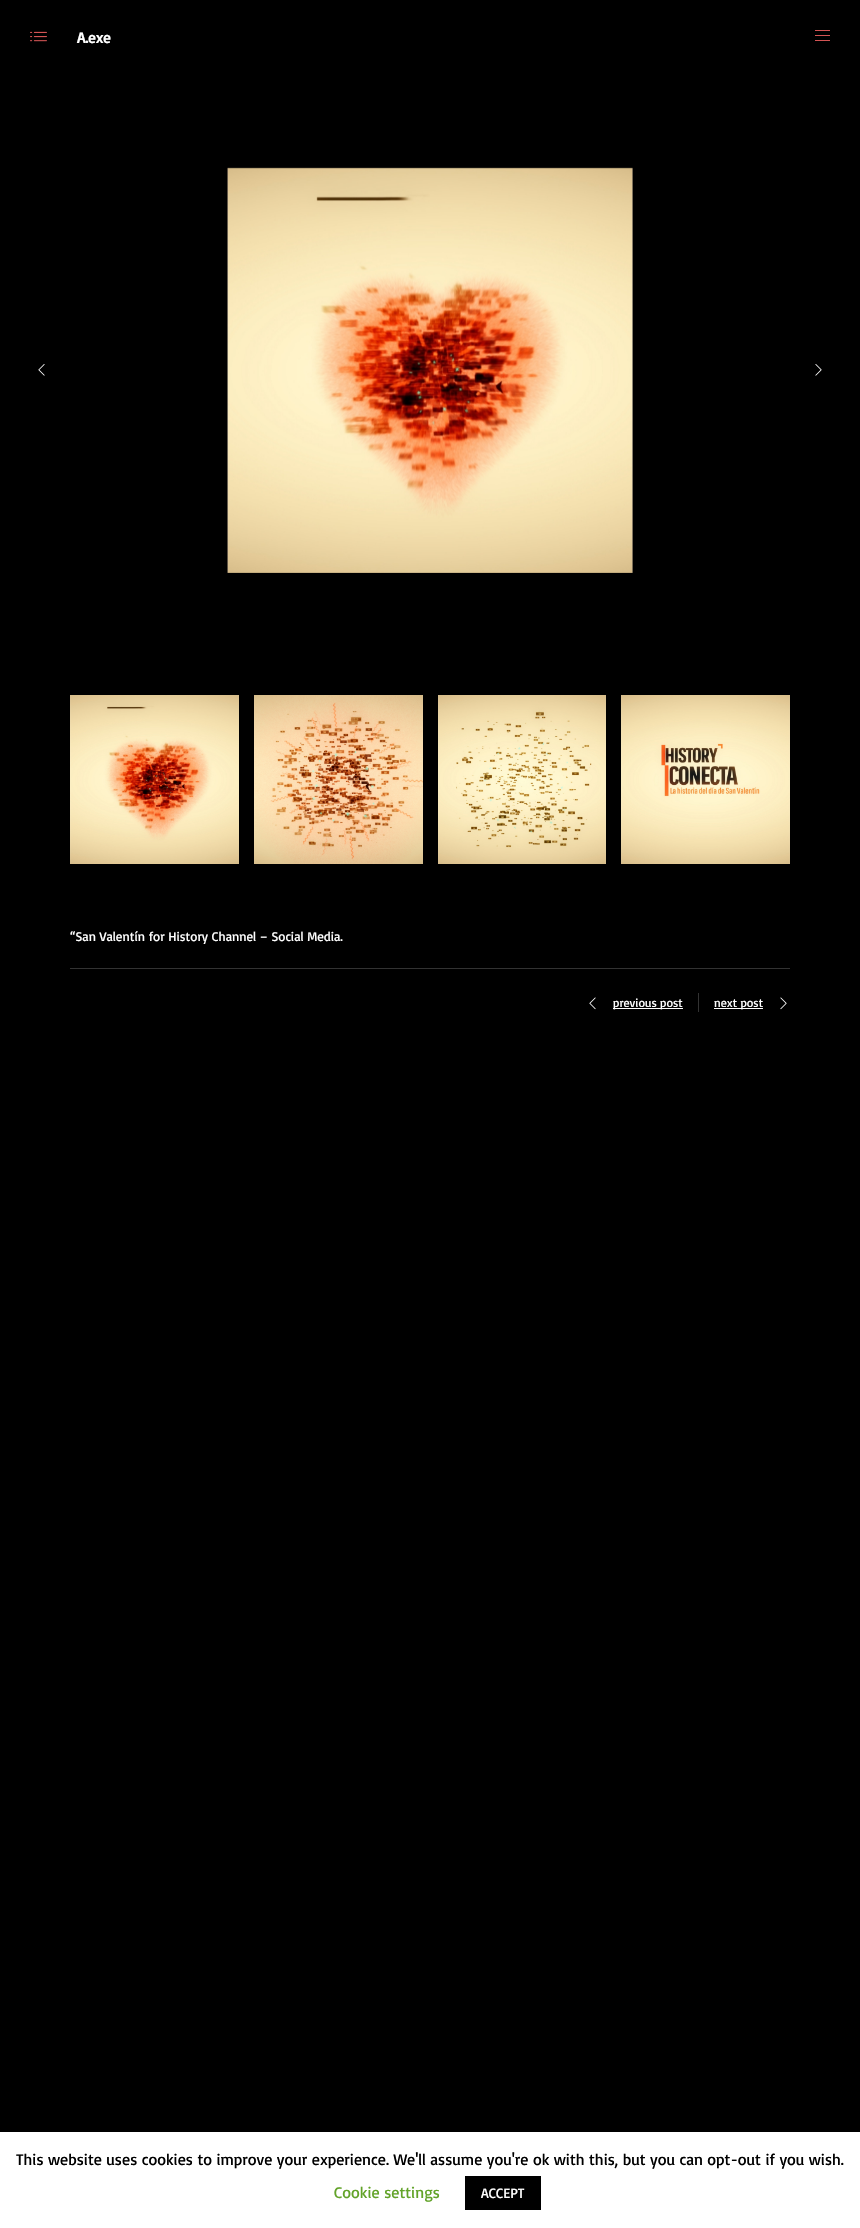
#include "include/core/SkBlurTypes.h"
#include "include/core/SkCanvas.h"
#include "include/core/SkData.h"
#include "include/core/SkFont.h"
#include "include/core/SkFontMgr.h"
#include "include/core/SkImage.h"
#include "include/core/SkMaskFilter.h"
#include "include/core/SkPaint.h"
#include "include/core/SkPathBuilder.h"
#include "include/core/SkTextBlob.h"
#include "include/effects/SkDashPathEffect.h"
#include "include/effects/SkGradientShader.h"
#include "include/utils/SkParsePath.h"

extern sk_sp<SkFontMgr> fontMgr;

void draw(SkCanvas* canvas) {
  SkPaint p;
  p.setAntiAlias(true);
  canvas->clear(SK_ColorBLACK);
  canvas->drawImageRect(SkImages::DeferredFromEncodedData(SkData::MakeFromFileName("images/1.png")), SkRect::MakeLTRB(30, 31, 47, 42), SkSamplingOptions());
  p.setColor(SkColorSetRGB(211, 84, 84));
  canvas->drawRect(SkRect::MakeLTRB(815, 30, 830, 31), p);
  canvas->drawRect(SkRect::MakeLTRB(815, 35, 830, 36), p);
  canvas->drawRect(SkRect::MakeLTRB(815, 40, 830, 41), p);
  canvas->drawImageRect(SkImages::DeferredFromEncodedData(SkData::MakeFromFileName("images/2.png")), SkRect::MakeLTRB(227, 167, 633, 573), SkSamplingOptions());
  canvas->drawImageRect(SkImages::DeferredFromEncodedData(SkData::MakeFromFileName("images/3.png")), SkRect::MakeLTRB(38, 364, 45, 376), SkSamplingOptions());
  canvas->drawImageRect(SkImages::DeferredFromEncodedData(SkData::MakeFromFileName("images/4.png")), SkRect::MakeLTRB(815, 364, 822, 376), SkSamplingOptions());
  canvas->drawImageRect(SkImages::DeferredFromEncodedData(SkData::MakeFromFileName("images/5.png")), SkRect::MakeLTRB(70, 695, 239, 864), SkSamplingOptions());
  canvas->drawImageRect(SkImages::DeferredFromEncodedData(SkData::MakeFromFileName("images/6.png")), SkRect::MakeLTRB(254, 695, 423, 864), SkSamplingOptions());
  canvas->drawImageRect(SkImages::DeferredFromEncodedData(SkData::MakeFromFileName("images/7.png")), SkRect::MakeLTRB(438, 695, 606, 864), SkSamplingOptions());
  canvas->drawImageRect(SkImages::DeferredFromEncodedData(SkData::MakeFromFileName("images/8.png")), SkRect::MakeLTRB(621, 695, 790, 864), SkSamplingOptions());
  p.setColor(SkColorSetRGB(50, 50, 50));
  canvas->drawRect(SkRect::MakeLTRB(70, 968, 790, 969), p);
  canvas->drawImageRect(SkImages::DeferredFromEncodedData(SkData::MakeFromFileName("images/9.png")), SkRect::MakeLTRB(589, 997, 596, 1010), SkSamplingOptions());
  p.setColor(SK_ColorWHITE);
  canvas->drawRect(SkRect::MakeLTRB(613, 1008, 683, 1009), p);
  p.setColor(SkColorSetRGB(50, 50, 50));
  canvas->drawRect(SkRect::MakeLTRB(698, 993, 699, 1012), p);
  p.setColor(SK_ColorWHITE);
  canvas->drawRect(SkRect::MakeLTRB(714, 1008, 763, 1009), p);
  canvas->drawImageRect(SkImages::DeferredFromEncodedData(SkData::MakeFromFileName("images/10.png")), SkRect::MakeLTRB(780, 997, 787, 1010), SkSamplingOptions());
  canvas->drawRect(SkRect::MakeLTRB(0, 2132, 860, 2228), p);
  p.setColor(SK_ColorBLACK);
  canvas->drawRect(SkRect::MakeLTRB(465, 2176, 541, 2210), p);
  SkFont font1(fontMgr->matchFamilyStyle("Basic", SkFontStyle::Bold()), 15);
  font1.setSubpixel(true);
  p.setColor(SK_ColorWHITE);
  canvas->drawString("A.exe", 77, 43, font1, p);
  SkFont font2(fontMgr->matchFamilyStyle("Basic", SkFontStyle::Normal()), 13);
  font2.setSubpixel(true);
  canvas->drawString("“San Valentín for History Channel – Social Media.", 70, 941, font2, p);
  SkFont font3(fontMgr->matchFamilyStyle("Basic", SkFontStyle::Normal()), 12);
  font3.setSubpixel(true);
  canvas->drawString("previous post", 613, 1007, font3, p);
  canvas->drawString("next post", 714, 1007, font3, p);
  SkFont font4(fontMgr->matchFamilyStyle("Basic", SkFontStyle::Normal()), 16);
  font4.setSubpixel(true);
  p.setColor(SK_ColorBLACK);
  canvas->drawString("This website uses cookies to improve your experience. We'll assume you're ok with this, but you can opt-out if you wish.", 16, 2165, font4, p);
  p.setColor(SkColorSetRGB(98, 163, 41));
  canvas->drawString("Cookie settings", 334, 2198, font4, p);
  SkFont font5(fontMgr->matchFamilyStyle("Basic", SkFontStyle::Normal()), 14);
  font5.setSubpixel(true);
  p.setColor(SK_ColorWHITE);
  canvas->drawString("ACCEPT", 481, 2198, font5, p);
}
